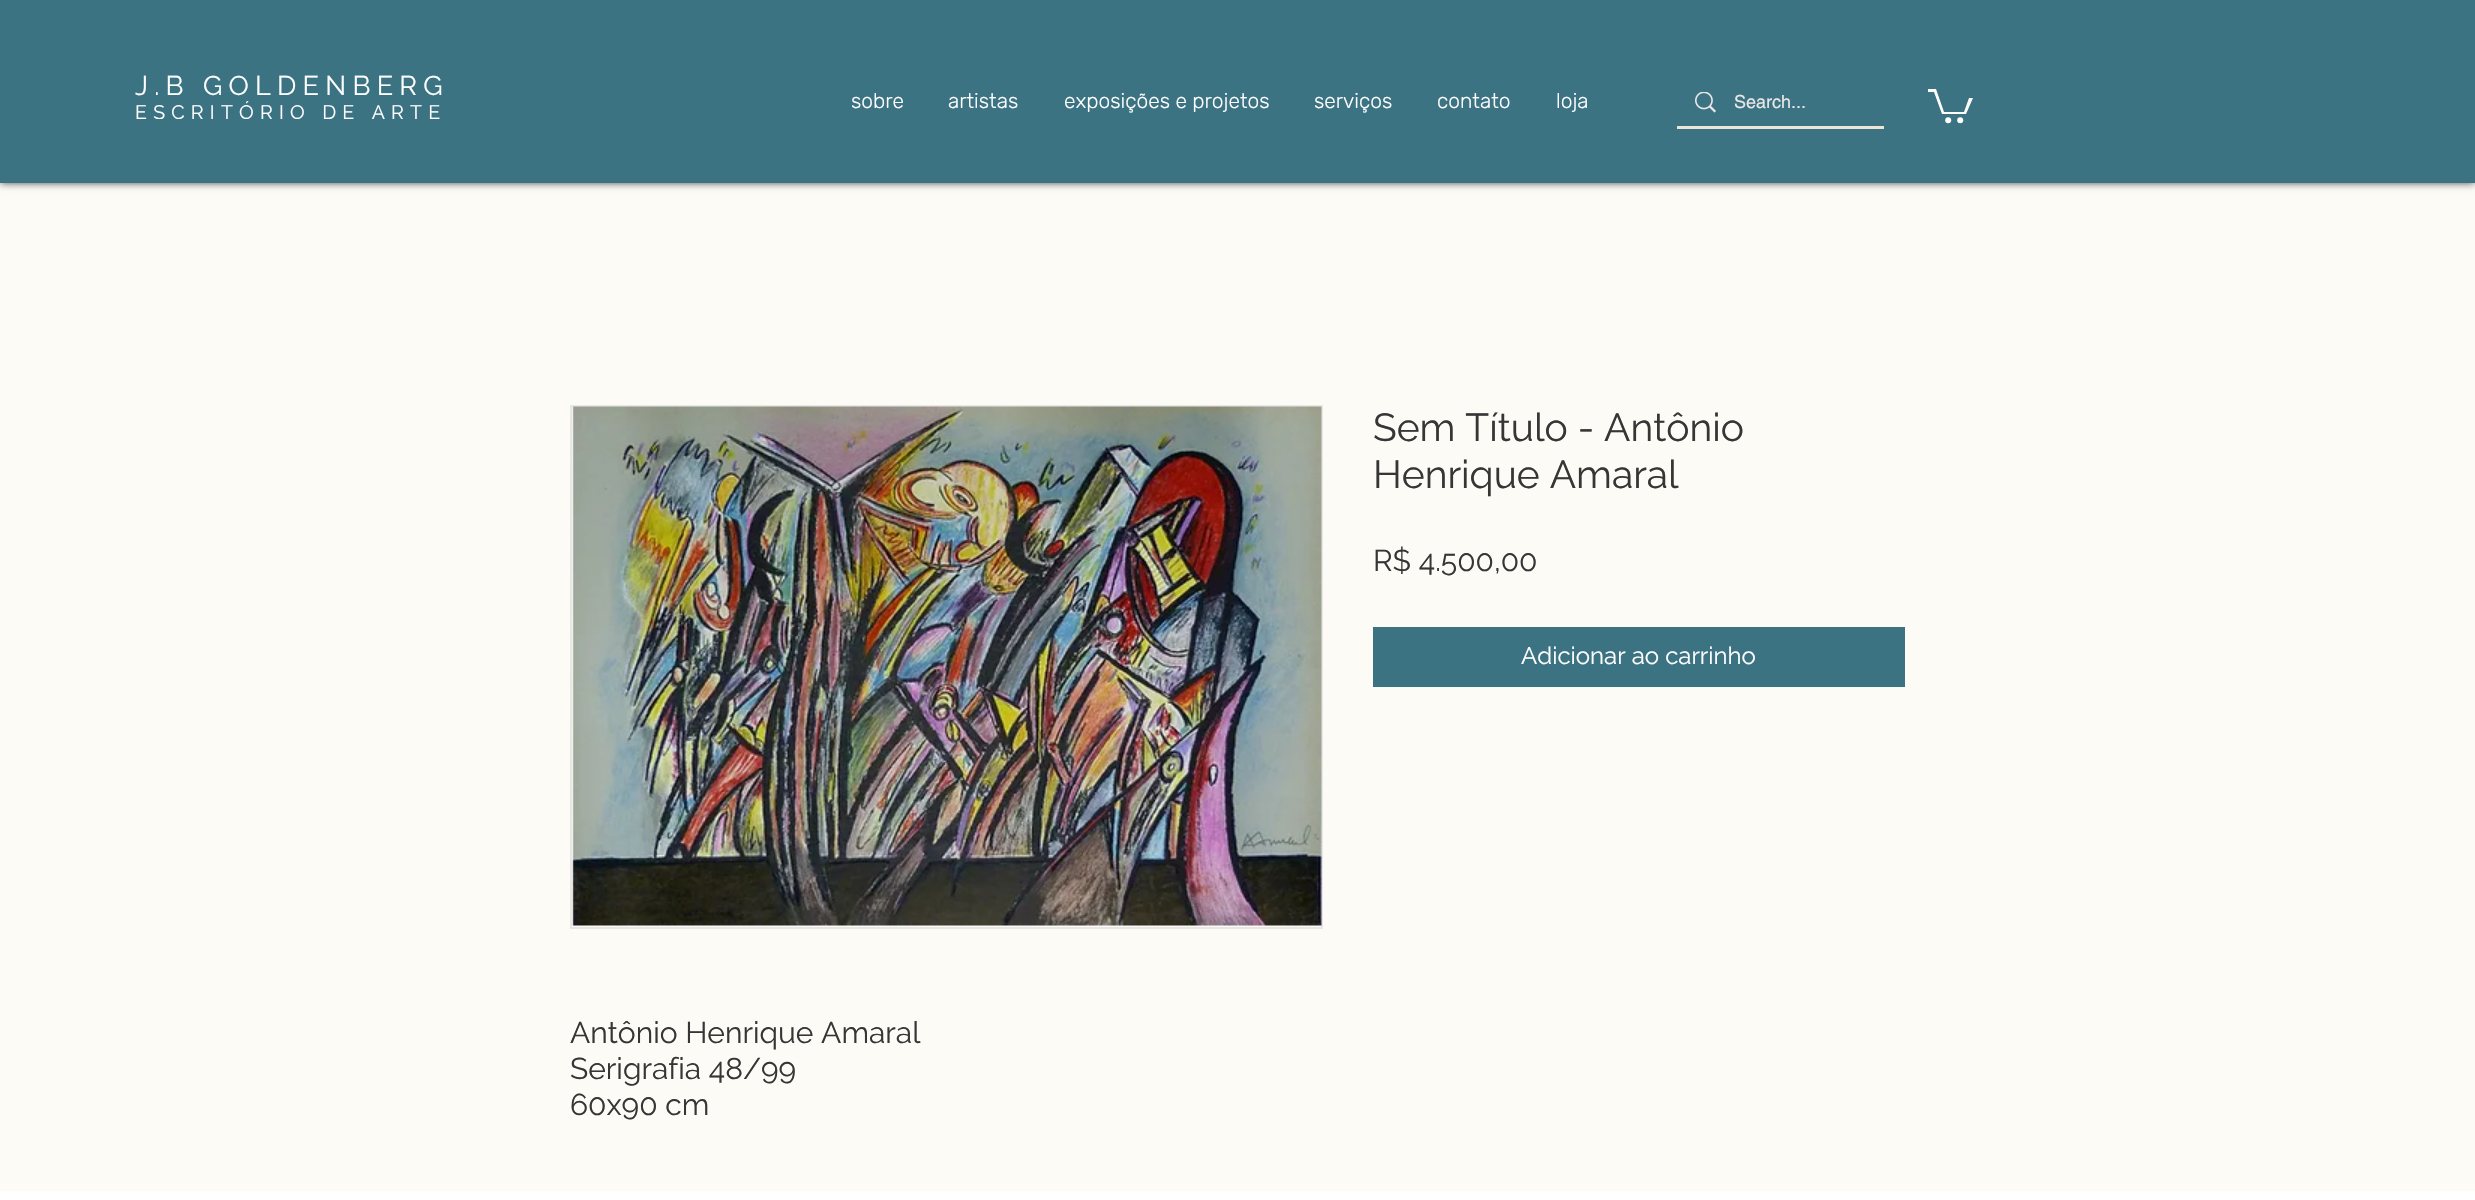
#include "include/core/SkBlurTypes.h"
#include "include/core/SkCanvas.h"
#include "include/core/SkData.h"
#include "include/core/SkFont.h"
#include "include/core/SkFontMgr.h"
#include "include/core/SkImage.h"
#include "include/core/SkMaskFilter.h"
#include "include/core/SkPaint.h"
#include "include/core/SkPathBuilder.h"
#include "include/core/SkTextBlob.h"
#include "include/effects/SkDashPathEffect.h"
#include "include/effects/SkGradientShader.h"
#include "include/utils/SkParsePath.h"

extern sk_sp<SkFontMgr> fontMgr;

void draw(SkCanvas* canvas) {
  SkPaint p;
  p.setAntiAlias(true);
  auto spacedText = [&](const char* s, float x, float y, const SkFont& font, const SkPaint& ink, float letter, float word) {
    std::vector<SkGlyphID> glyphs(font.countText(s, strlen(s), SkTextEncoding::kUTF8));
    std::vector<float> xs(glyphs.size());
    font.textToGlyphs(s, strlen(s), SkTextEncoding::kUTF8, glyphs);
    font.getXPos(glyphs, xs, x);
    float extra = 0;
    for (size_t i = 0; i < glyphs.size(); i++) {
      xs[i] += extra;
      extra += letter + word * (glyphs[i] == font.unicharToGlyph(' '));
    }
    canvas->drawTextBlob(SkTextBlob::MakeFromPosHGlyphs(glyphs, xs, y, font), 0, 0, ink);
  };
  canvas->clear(SkColorSetRGB(253, 251, 246));
  p.setColor(SkColorSetARGB(179, 0, 0, 0));
  p.setMaskFilter(SkMaskFilter::MakeBlur(kNormal_SkBlurStyle, 4));
  canvas->drawRect(SkRect::MakeLTRB(0, 0, 2475, 183), p);
  p.setMaskFilter(nullptr);
  p.setColor(SkColorSetRGB(60, 115, 130));
  canvas->drawRect(SkRect::MakeLTRB(0, 0, 2475, 183), p);
  p.setColor(SkColorSetRGB(235, 229, 214));
  canvas->drawRect(SkRect::MakeLTRB(1677, 126, 1884, 129), p);
  canvas->drawImageRect(SkImages::DeferredFromEncodedData(SkData::MakeFromFileName("images/1.png")), SkRect::MakeLTRB(1695, 92, 1716, 113), SkSamplingOptions());
  p.setColor(SK_ColorWHITE);
  canvas->drawPath(SkPathBuilder().moveTo(1973, 98).lineTo(1966, 114).lineTo(1942, 114).lineTo(1934, 92).lineTo(1928, 92).lineTo(1928, 89).lineTo(1936, 89).lineTo(1944, 112).lineTo(1964, 112).lineTo(1969, 98).detach(), p);
  canvas->drawCircle(1960.2f, 120.3f, 3, p);
  canvas->drawCircle(1948.2f, 120.3f, 3, p);
  p.setColor(SkColorSetRGB(60, 115, 130));
  canvas->drawRect(SkRect::MakeLTRB(1373, 627, 1905, 687), p);
  p.setStyle(SkPaint::kStroke_Style);
  p.setStrokeWidth(2);
  p.setColor(SkColorSetRGB(232, 230, 230));
  canvas->drawRect(SkRect::MakeLTRB(571, 406, 1322, 928), p);
  canvas->drawImageRect(SkImages::DeferredFromEncodedData(SkData::MakeFromFileName("images/2.png")), SkRect::MakeLTRB(572, 406, 1322, 926), SkSamplingOptions());
  p.setStyle(SkPaint::kFill_Style);
  p.setColor(SK_ColorWHITE);
  canvas->drawRect(SkRect::MakeLTRB(0, 1191, 2475, 1200), p);
  SkFont font1(fontMgr->matchFamilyStyle("Raleway", SkFontStyle::Normal()), 27);
  font1.setSubpixel(true);
  spacedText("J.B GOLDENBERG", 135, 95, font1, p, 6.25f, 0);
  SkFont font2(fontMgr->matchFamilyStyle("Raleway", SkFontStyle::Normal()), 19.5f);
  font2.setSubpixel(true);
  spacedText("ESCRITÓRIO DE ARTE", 135, 119, font2, p, 6.25f, 0);
  SkFont font3(fontMgr->matchFamilyStyle("Rubik", SkFontStyle(300, SkFontStyle::kNormal_Width, SkFontStyle::kUpright_Slant)), 21);
  font3.setSubpixel(true);
  canvas->drawString("sobre", 851, 108, font3, p);
  canvas->drawString("artistas", 948, 108, font3, p);
  canvas->drawString("exposições e projetos", 1064, 108, font3, p);
  canvas->drawString("serviços", 1314, 108, font3, p);
  canvas->drawString("contato", 1437, 108, font3, p);
  canvas->drawString("loja", 1556, 108, font3, p);
  SkFont font4(fontMgr->matchFamilyStyle("helvetica", SkFontStyle::Normal()), 18);
  font4.setSubpixel(true);
  p.setColor(SkColorSetRGB(232, 230, 230));
  canvas->drawString("Search...", 1734, 108, font4, p);
  SkFont font5(fontMgr->matchFamilyStyle("Raleway", SkFontStyle::Normal()), 39);
  font5.setSubpixel(true);
  p.setColor(SkColorSetRGB(54, 54, 54));
  canvas->drawString("Sem Título - Antônio", 1373, 441, font5, p);
  canvas->drawString("Henrique Amaral", 1373, 488, font5, p);
  SkFont font6(fontMgr->matchFamilyStyle("Raleway", SkFontStyle::Normal()), 30);
  font6.setSubpixel(true);
  canvas->drawString("R$ 4.500,00", 1373, 571, font6, p);
  SkFont font7(fontMgr->matchFamilyStyle("Raleway", SkFontStyle::Normal()), 24);
  font7.setSubpixel(true);
  p.setColor(SK_ColorWHITE);
  canvas->drawString("Adicionar ao carrinho", 1521, 664, font7, p);
  p.setColor(SkColorSetRGB(54, 54, 54));
  canvas->drawString("Antônio Henrique Amaral", 570, 1043, font6, p);
  canvas->drawString("Serigrafia 48/99", 570, 1079, font6, p);
  canvas->drawString("60x90 cm", 570, 1115, font6, p);
}
